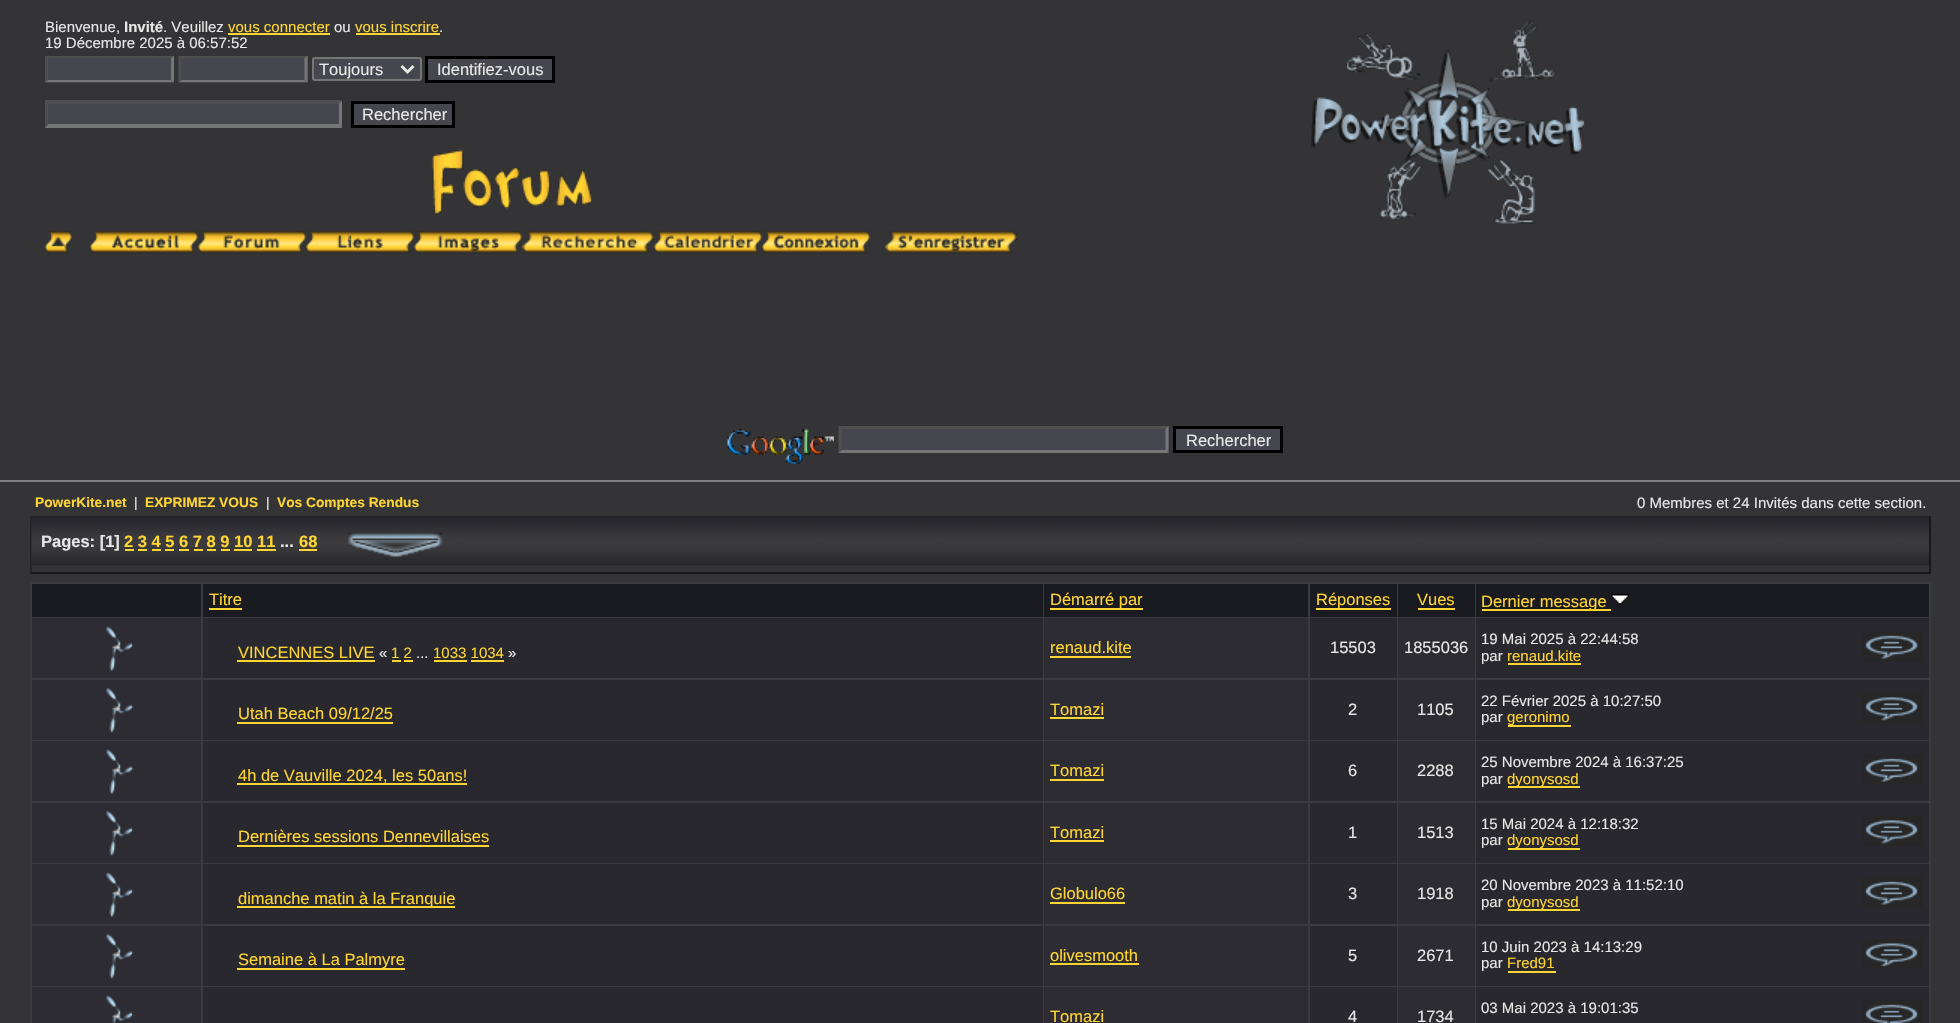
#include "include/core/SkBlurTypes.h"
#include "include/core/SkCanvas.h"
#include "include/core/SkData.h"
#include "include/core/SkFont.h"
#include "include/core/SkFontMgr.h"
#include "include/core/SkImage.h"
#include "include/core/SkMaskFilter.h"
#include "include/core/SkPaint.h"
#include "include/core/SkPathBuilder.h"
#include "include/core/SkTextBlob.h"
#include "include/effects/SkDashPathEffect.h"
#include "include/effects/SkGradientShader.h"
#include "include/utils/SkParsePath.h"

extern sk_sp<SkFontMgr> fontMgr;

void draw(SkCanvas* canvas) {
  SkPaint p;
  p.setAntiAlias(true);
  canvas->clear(SkColorSetRGB(52, 52, 55));
  p.setColor(SkColorSetRGB(128, 128, 128));
  canvas->drawRect(SkRect::MakeLTRB(0, 480, 1960, 482), p);
  p.setColor(SkColorSetRGB(255, 213, 51));
  canvas->drawRect(SkRect::MakeLTRB(228, 33, 330, 35), p);
  canvas->drawRect(SkRect::MakeLTRB(356, 33, 440, 35), p);
  p.setColor(SkColorSetRGB(70, 70, 78));
  canvas->drawRect(SkRect::MakeLTRB(45, 56, 174, 83), p);
  p.setColor(SkColorSetRGB(79, 79, 79));
  canvas->drawPath(SkPathBuilder().moveTo(45, 56).lineTo(174, 56).lineTo(171, 58).lineTo(48, 58).close().detach(), p);
  p.setColor(SkColorSetRGB(118, 118, 118));
  canvas->drawPath(SkPathBuilder().moveTo(174, 55.5f).lineTo(174, 82.5f).lineTo(171, 79.5f).lineTo(171, 58.5f).close().detach(), p);
  canvas->drawPath(SkPathBuilder().moveTo(174, 82).lineTo(45, 82).lineTo(48, 80).lineTo(171, 80).close().detach(), p);
  p.setColor(SkColorSetRGB(79, 79, 79));
  canvas->drawPath(SkPathBuilder().moveTo(45, 82.5f).lineTo(45, 55.5f).lineTo(48, 58.5f).lineTo(48, 79.5f).close().detach(), p);
  p.setColor(SkColorSetRGB(70, 70, 78));
  canvas->drawRect(SkRect::MakeLTRB(179, 56, 308, 83), p);
  p.setColor(SkColorSetRGB(79, 79, 79));
  canvas->drawPath(SkPathBuilder().moveTo(178, 56).lineTo(308, 56).lineTo(304, 58).lineTo(182, 58).close().detach(), p);
  p.setColor(SkColorSetRGB(118, 118, 118));
  canvas->drawPath(SkPathBuilder().moveTo(307.5f, 55.5f).lineTo(307.5f, 82.5f).lineTo(304.5f, 79.5f).lineTo(304.5f, 58.5f).close().detach(), p);
  canvas->drawPath(SkPathBuilder().moveTo(308, 82).lineTo(178, 82).lineTo(182, 80).lineTo(304, 80).close().detach(), p);
  p.setColor(SkColorSetRGB(79, 79, 79));
  canvas->drawPath(SkPathBuilder().moveTo(178.5f, 82.5f).lineTo(178.5f, 55.5f).lineTo(181.5f, 58.5f).lineTo(181.5f, 79.5f).close().detach(), p);
  p.setColor(SkColorSetRGB(70, 70, 78));
  canvas->drawRoundRect(SkRect::MakeLTRB(313, 58, 421, 80), 2, 2, p);
  p.setStyle(SkPaint::kStroke_Style);
  p.setStrokeWidth(2);
  p.setColor(SkColorSetRGB(118, 118, 118));
  canvas->drawRoundRect(SkRect::MakeLTRB(313, 58, 421, 80), 2, 2, p);
  p.setStrokeWidth(3);
  p.setColor(SkColorSetRGB(231, 231, 231));
  canvas->drawPath(SkPathBuilder().moveTo(401.5f, 66).lineTo(407.5f, 72).lineTo(413.5f, 66).detach(), p);
  p.setStyle(SkPaint::kFill_Style);
  p.setColor(SkColorSetRGB(70, 70, 78));
  canvas->drawRect(SkRect::MakeLTRB(426.5f, 57.5f, 553.5f, 81.5f), p);
  p.setStyle(SkPaint::kStroke_Style);
  p.setColor(SK_ColorBLACK);
  canvas->drawRect(SkRect::MakeLTRB(426.5f, 57.5f, 553.5f, 81.5f), p);
  p.setStyle(SkPaint::kFill_Style);
  p.setColor(SkColorSetRGB(70, 70, 78));
  canvas->drawRect(SkRect::MakeLTRB(45, 101, 342, 128), p);
  p.setColor(SkColorSetRGB(79, 79, 79));
  canvas->drawPath(SkPathBuilder().moveTo(45, 100).lineTo(342, 100).lineTo(339, 104).lineTo(48, 104).close().detach(), p);
  p.setColor(SkColorSetRGB(118, 118, 118));
  canvas->drawPath(SkPathBuilder().moveTo(342, 100.5f).lineTo(342, 127.5f).lineTo(339, 124.5f).lineTo(339, 103.5f).close().detach(), p);
  canvas->drawPath(SkPathBuilder().moveTo(342, 128).lineTo(45, 128).lineTo(48, 124).lineTo(339, 124).close().detach(), p);
  p.setColor(SkColorSetRGB(79, 79, 79));
  canvas->drawPath(SkPathBuilder().moveTo(45, 127.5f).lineTo(45, 100.5f).lineTo(48, 103.5f).lineTo(48, 124.5f).close().detach(), p);
  p.setColor(SkColorSetRGB(70, 70, 78));
  canvas->drawRect(SkRect::MakeLTRB(352.5f, 102.5f, 453.5f, 126.5f), p);
  p.setStyle(SkPaint::kStroke_Style);
  p.setColor(SK_ColorBLACK);
  canvas->drawRect(SkRect::MakeLTRB(352.5f, 102.5f, 453.5f, 126.5f), p);
  canvas->drawImageRect(SkImages::DeferredFromEncodedData(SkData::MakeFromFileName("images/1.png")), SkRect::MakeLTRB(1311, 20, 1586, 224), SkSamplingOptions());
  canvas->drawImageRect(SkImages::DeferredFromEncodedData(SkData::MakeFromFileName("images/2.png")), SkRect::MakeLTRB(431, 149, 593, 215), SkSamplingOptions());
  canvas->drawImageRect(SkImages::DeferredFromEncodedData(SkData::MakeFromFileName("images/3.png")), SkRect::MakeLTRB(45, 231, 72, 254), SkSamplingOptions());
  canvas->drawImageRect(SkImages::DeferredFromEncodedData(SkData::MakeFromFileName("images/4.png")), SkRect::MakeLTRB(90, 231, 198, 254), SkSamplingOptions());
  canvas->drawImageRect(SkImages::DeferredFromEncodedData(SkData::MakeFromFileName("images/5.png")), SkRect::MakeLTRB(198, 231, 306, 254), SkSamplingOptions());
  canvas->drawImageRect(SkImages::DeferredFromEncodedData(SkData::MakeFromFileName("images/6.png")), SkRect::MakeLTRB(306, 231, 414, 254), SkSamplingOptions());
  canvas->drawImageRect(SkImages::DeferredFromEncodedData(SkData::MakeFromFileName("images/7.png")), SkRect::MakeLTRB(414, 231, 522, 254), SkSamplingOptions());
  canvas->drawImageRect(SkImages::DeferredFromEncodedData(SkData::MakeFromFileName("images/8.png")), SkRect::MakeLTRB(522, 231, 654, 254), SkSamplingOptions());
  canvas->drawImageRect(SkImages::DeferredFromEncodedData(SkData::MakeFromFileName("images/9.png")), SkRect::MakeLTRB(654, 231, 762, 254), SkSamplingOptions());
  canvas->drawImageRect(SkImages::DeferredFromEncodedData(SkData::MakeFromFileName("images/10.png")), SkRect::MakeLTRB(762, 231, 871, 254), SkSamplingOptions());
  canvas->drawImageRect(SkImages::DeferredFromEncodedData(SkData::MakeFromFileName("images/11.png")), SkRect::MakeLTRB(885, 231, 1017, 254), SkSamplingOptions());
  canvas->drawImageRect(SkImages::DeferredFromEncodedData(SkData::MakeFromFileName("images/12.png")), SkRect::MakeLTRB(727, 428, 834, 464), SkSamplingOptions());
  p.setStyle(SkPaint::kFill_Style);
  p.setColor(SkColorSetRGB(70, 70, 78));
  canvas->drawRect(SkRect::MakeLTRB(839, 426, 1169, 453), p);
  p.setColor(SkColorSetRGB(79, 79, 79));
  canvas->drawPath(SkPathBuilder().moveTo(838, 426).lineTo(1168, 426).lineTo(1166, 429).lineTo(842, 429).close().detach(), p);
  p.setColor(SkColorSetRGB(118, 118, 118));
  canvas->drawPath(SkPathBuilder().moveTo(1168.5f, 426).lineTo(1168.5f, 453).lineTo(1165.5f, 450).lineTo(1165.5f, 429).close().detach(), p);
  canvas->drawPath(SkPathBuilder().moveTo(1168, 453).lineTo(838, 453).lineTo(842, 450).lineTo(1166, 450).close().detach(), p);
  p.setColor(SkColorSetRGB(79, 79, 79));
  canvas->drawPath(SkPathBuilder().moveTo(838.5f, 453).lineTo(838.5f, 426).lineTo(841.5f, 429).lineTo(841.5f, 450).close().detach(), p);
  p.setColor(SkColorSetRGB(70, 70, 78));
  canvas->drawRect(SkRect::MakeLTRB(1174.5f, 427.5f, 1281.5f, 451.5f), p);
  p.setStyle(SkPaint::kStroke_Style);
  p.setColor(SK_ColorBLACK);
  canvas->drawRect(SkRect::MakeLTRB(1174.5f, 427.5f, 1281.5f, 451.5f), p);
  p.setStyle(SkPaint::kFill_Style);
  p.setColor(SkColorSetRGB(36, 36, 36));
  canvas->drawRect(SkRect::MakeLTRB(30, 516, 1931, 518), p);
  p.setColor(SkColorSetRGB(24, 24, 24));
  canvas->drawRect(SkRect::MakeLTRB(1929, 516, 1931, 573), p);
  canvas->drawRect(SkRect::MakeLTRB(30, 572, 1931, 574), p);
  p.setColor(SkColorSetRGB(36, 36, 36));
  canvas->drawRect(SkRect::MakeLTRB(30, 516, 32, 573), p);
  canvas->drawImageRect(SkImages::DeferredFromEncodedData(SkData::MakeFromFileName("images/13.png")), SkRect::MakeLTRB(31, 517, 1929, 566), SkSamplingOptions());
  p.setColor(SkColorSetRGB(255, 213, 51));
  canvas->drawRect(SkRect::MakeLTRB(125, 549, 134, 551), p);
  canvas->drawRect(SkRect::MakeLTRB(299, 549, 317, 551), p);
  canvas->drawImageRect(SkImages::DeferredFromEncodedData(SkData::MakeFromFileName("images/14.png")), SkRect::MakeLTRB(347, 532, 443, 557), SkSamplingOptions());
  canvas->drawRect(SkRect::MakeLTRB(138, 549, 147, 551), p);
  canvas->drawRect(SkRect::MakeLTRB(152, 549, 161, 551), p);
  canvas->drawRect(SkRect::MakeLTRB(165, 549, 174, 551), p);
  canvas->drawRect(SkRect::MakeLTRB(179, 549, 189, 551), p);
  canvas->drawRect(SkRect::MakeLTRB(194, 549, 203, 551), p);
  canvas->drawRect(SkRect::MakeLTRB(207, 549, 216, 551), p);
  canvas->drawRect(SkRect::MakeLTRB(221, 549, 230, 551), p);
  canvas->drawRect(SkRect::MakeLTRB(234, 549, 252, 551), p);
  canvas->drawRect(SkRect::MakeLTRB(257, 549, 276, 551), p);
  p.setColor(SkColorSetRGB(59, 59, 63));
  canvas->drawRect(SkRect::MakeLTRB(30, 582, 1931, 1023), p);
  p.setColor(SkColorSetRGB(26, 26, 33));
  canvas->drawRect(SkRect::MakeLTRB(32, 584, 201, 617), p);
  canvas->drawRect(SkRect::MakeLTRB(203, 584, 1043, 617), p);
  p.setColor(SkColorSetRGB(255, 213, 51));
  canvas->drawRect(SkRect::MakeLTRB(209, 608, 242, 610), p);
  p.setColor(SkColorSetRGB(26, 26, 33));
  canvas->drawRect(SkRect::MakeLTRB(1044, 584, 1308, 617), p);
  p.setColor(SkColorSetRGB(255, 213, 51));
  canvas->drawRect(SkRect::MakeLTRB(1050, 608, 1143, 610), p);
  p.setColor(SkColorSetRGB(26, 26, 33));
  canvas->drawRect(SkRect::MakeLTRB(1310, 584, 1397, 617), p);
  p.setColor(SkColorSetRGB(255, 213, 51));
  canvas->drawRect(SkRect::MakeLTRB(1316, 608, 1391, 610), p);
  p.setColor(SkColorSetRGB(26, 26, 33));
  canvas->drawRect(SkRect::MakeLTRB(1398, 584, 1475, 617), p);
  p.setColor(SkColorSetRGB(255, 213, 51));
  canvas->drawRect(SkRect::MakeLTRB(1418, 608, 1455, 610), p);
  p.setColor(SkColorSetRGB(26, 26, 33));
  canvas->drawRect(SkRect::MakeLTRB(1476, 584, 1929, 617), p);
  p.setColor(SkColorSetRGB(255, 213, 51));
  canvas->drawRect(SkRect::MakeLTRB(1482, 609, 1611, 611), p);
  canvas->drawImageRect(SkImages::DeferredFromEncodedData(SkData::MakeFromFileName("images/15.png")), SkRect::MakeLTRB(1611, 593, 1629, 605), SkSamplingOptions());
  p.setColor(SkColorSetRGB(44, 44, 50));
  canvas->drawRect(SkRect::MakeLTRB(32, 618, 201, 678), p);
  canvas->drawImageRect(SkImages::DeferredFromEncodedData(SkData::MakeFromFileName("images/16.png")), SkRect::MakeLTRB(106, 626, 133, 671), SkSamplingOptions());
  p.setColor(SkColorSetRGB(40, 40, 46));
  canvas->drawRect(SkRect::MakeLTRB(203, 618, 1043, 678), p);
  p.setColor(SkColorSetRGB(255, 213, 51));
  canvas->drawRect(SkRect::MakeLTRB(237, 660, 375, 662), p);
  canvas->drawRect(SkRect::MakeLTRB(392, 660, 401, 662), p);
  canvas->drawRect(SkRect::MakeLTRB(404, 660, 413, 662), p);
  canvas->drawRect(SkRect::MakeLTRB(434, 660, 467, 662), p);
  canvas->drawRect(SkRect::MakeLTRB(471, 660, 504, 662), p);
  p.setColor(SkColorSetRGB(44, 44, 50));
  canvas->drawRect(SkRect::MakeLTRB(1044, 618, 1308, 678), p);
  p.setColor(SkColorSetRGB(255, 213, 51));
  canvas->drawRect(SkRect::MakeLTRB(1050, 656, 1131, 658), p);
  p.setColor(SkColorSetRGB(40, 40, 46));
  canvas->drawRect(SkRect::MakeLTRB(1310, 618, 1397, 678), p);
  p.setColor(SkColorSetRGB(44, 44, 50));
  canvas->drawRect(SkRect::MakeLTRB(1398, 618, 1475, 678), p);
  p.setColor(SkColorSetRGB(40, 40, 46));
  canvas->drawRect(SkRect::MakeLTRB(1476, 618, 1929, 678), p);
  canvas->drawImageRect(SkImages::DeferredFromEncodedData(SkData::MakeFromFileName("images/17.png")), SkRect::MakeLTRB(1863, 631, 1923, 662), SkSamplingOptions());
  p.setColor(SkColorSetRGB(255, 213, 51));
  canvas->drawRect(SkRect::MakeLTRB(1508, 663, 1581, 665), p);
  p.setColor(SkColorSetRGB(44, 44, 50));
  canvas->drawRect(SkRect::MakeLTRB(32, 680, 201, 740), p);
  canvas->drawImageRect(SkImages::DeferredFromEncodedData(SkData::MakeFromFileName("images/18.png")), SkRect::MakeLTRB(106, 688, 133, 733), SkSamplingOptions());
  p.setColor(SkColorSetRGB(40, 40, 46));
  canvas->drawRect(SkRect::MakeLTRB(203, 680, 1043, 740), p);
  p.setColor(SkColorSetRGB(255, 213, 51));
  canvas->drawRect(SkRect::MakeLTRB(237, 722, 393, 724), p);
  p.setColor(SkColorSetRGB(44, 44, 50));
  canvas->drawRect(SkRect::MakeLTRB(1044, 680, 1308, 740), p);
  p.setColor(SkColorSetRGB(255, 213, 51));
  canvas->drawRect(SkRect::MakeLTRB(1050, 717, 1104, 719), p);
  p.setColor(SkColorSetRGB(40, 40, 46));
  canvas->drawRect(SkRect::MakeLTRB(1310, 680, 1397, 740), p);
  p.setColor(SkColorSetRGB(44, 44, 50));
  canvas->drawRect(SkRect::MakeLTRB(1398, 680, 1475, 740), p);
  p.setColor(SkColorSetRGB(40, 40, 46));
  canvas->drawRect(SkRect::MakeLTRB(1476, 680, 1929, 740), p);
  canvas->drawImageRect(SkImages::DeferredFromEncodedData(SkData::MakeFromFileName("images/19.png")), SkRect::MakeLTRB(1863, 693, 1923, 723), SkSamplingOptions());
  p.setColor(SkColorSetRGB(255, 213, 51));
  canvas->drawRect(SkRect::MakeLTRB(1508, 725, 1571, 727), p);
  p.setColor(SkColorSetRGB(44, 44, 50));
  canvas->drawRect(SkRect::MakeLTRB(32, 741, 201, 801), p);
  canvas->drawImageRect(SkImages::DeferredFromEncodedData(SkData::MakeFromFileName("images/16.png")), SkRect::MakeLTRB(106, 749, 133, 794), SkSamplingOptions());
  p.setColor(SkColorSetRGB(40, 40, 46));
  canvas->drawRect(SkRect::MakeLTRB(203, 741, 1043, 801), p);
  p.setColor(SkColorSetRGB(255, 213, 51));
  canvas->drawRect(SkRect::MakeLTRB(237, 783, 467, 785), p);
  p.setColor(SkColorSetRGB(44, 44, 50));
  canvas->drawRect(SkRect::MakeLTRB(1044, 741, 1308, 801), p);
  p.setColor(SkColorSetRGB(255, 213, 51));
  canvas->drawRect(SkRect::MakeLTRB(1050, 779, 1104, 781), p);
  p.setColor(SkColorSetRGB(40, 40, 46));
  canvas->drawRect(SkRect::MakeLTRB(1310, 741, 1397, 801), p);
  p.setColor(SkColorSetRGB(44, 44, 50));
  canvas->drawRect(SkRect::MakeLTRB(1398, 741, 1475, 801), p);
  p.setColor(SkColorSetRGB(40, 40, 46));
  canvas->drawRect(SkRect::MakeLTRB(1476, 741, 1929, 801), p);
  canvas->drawImageRect(SkImages::DeferredFromEncodedData(SkData::MakeFromFileName("images/17.png")), SkRect::MakeLTRB(1863, 754, 1923, 785), SkSamplingOptions());
  p.setColor(SkColorSetRGB(255, 213, 51));
  canvas->drawRect(SkRect::MakeLTRB(1508, 786, 1580, 788), p);
  p.setColor(SkColorSetRGB(44, 44, 50));
  canvas->drawRect(SkRect::MakeLTRB(32, 803, 201, 863), p);
  canvas->drawImageRect(SkImages::DeferredFromEncodedData(SkData::MakeFromFileName("images/18.png")), SkRect::MakeLTRB(106, 811, 133, 856), SkSamplingOptions());
  p.setColor(SkColorSetRGB(40, 40, 46));
  canvas->drawRect(SkRect::MakeLTRB(203, 803, 1043, 863), p);
  p.setColor(SkColorSetRGB(255, 213, 51));
  canvas->drawRect(SkRect::MakeLTRB(237, 845, 489, 847), p);
  p.setColor(SkColorSetRGB(44, 44, 50));
  canvas->drawRect(SkRect::MakeLTRB(1044, 803, 1308, 863), p);
  p.setColor(SkColorSetRGB(255, 213, 51));
  canvas->drawRect(SkRect::MakeLTRB(1050, 840, 1104, 842), p);
  p.setColor(SkColorSetRGB(40, 40, 46));
  canvas->drawRect(SkRect::MakeLTRB(1310, 803, 1397, 863), p);
  p.setColor(SkColorSetRGB(44, 44, 50));
  canvas->drawRect(SkRect::MakeLTRB(1398, 803, 1475, 863), p);
  p.setColor(SkColorSetRGB(40, 40, 46));
  canvas->drawRect(SkRect::MakeLTRB(1476, 803, 1929, 863), p);
  canvas->drawImageRect(SkImages::DeferredFromEncodedData(SkData::MakeFromFileName("images/19.png")), SkRect::MakeLTRB(1863, 816, 1923, 846), SkSamplingOptions());
  p.setColor(SkColorSetRGB(255, 213, 51));
  canvas->drawRect(SkRect::MakeLTRB(1508, 848, 1580, 850), p);
  p.setColor(SkColorSetRGB(44, 44, 50));
  canvas->drawRect(SkRect::MakeLTRB(32, 864, 201, 924), p);
  canvas->drawImageRect(SkImages::DeferredFromEncodedData(SkData::MakeFromFileName("images/16.png")), SkRect::MakeLTRB(106, 872, 133, 917), SkSamplingOptions());
  p.setColor(SkColorSetRGB(40, 40, 46));
  canvas->drawRect(SkRect::MakeLTRB(203, 864, 1043, 924), p);
  p.setColor(SkColorSetRGB(255, 213, 51));
  canvas->drawRect(SkRect::MakeLTRB(237, 906, 455, 908), p);
  p.setColor(SkColorSetRGB(44, 44, 50));
  canvas->drawRect(SkRect::MakeLTRB(1044, 864, 1308, 924), p);
  p.setColor(SkColorSetRGB(255, 213, 51));
  canvas->drawRect(SkRect::MakeLTRB(1050, 902, 1125, 904), p);
  p.setColor(SkColorSetRGB(40, 40, 46));
  canvas->drawRect(SkRect::MakeLTRB(1310, 864, 1397, 924), p);
  p.setColor(SkColorSetRGB(44, 44, 50));
  canvas->drawRect(SkRect::MakeLTRB(1398, 864, 1475, 924), p);
  p.setColor(SkColorSetRGB(40, 40, 46));
  canvas->drawRect(SkRect::MakeLTRB(1476, 864, 1929, 924), p);
  canvas->drawImageRect(SkImages::DeferredFromEncodedData(SkData::MakeFromFileName("images/17.png")), SkRect::MakeLTRB(1863, 877, 1923, 908), SkSamplingOptions());
  p.setColor(SkColorSetRGB(255, 213, 51));
  canvas->drawRect(SkRect::MakeLTRB(1508, 909, 1580, 911), p);
  p.setColor(SkColorSetRGB(44, 44, 50));
  canvas->drawRect(SkRect::MakeLTRB(32, 926, 201, 986), p);
  canvas->drawImageRect(SkImages::DeferredFromEncodedData(SkData::MakeFromFileName("images/18.png")), SkRect::MakeLTRB(106, 934, 133, 979), SkSamplingOptions());
  p.setColor(SkColorSetRGB(40, 40, 46));
  canvas->drawRect(SkRect::MakeLTRB(203, 926, 1043, 986), p);
  p.setColor(SkColorSetRGB(255, 213, 51));
  canvas->drawRect(SkRect::MakeLTRB(237, 968, 405, 970), p);
  p.setColor(SkColorSetRGB(44, 44, 50));
  canvas->drawRect(SkRect::MakeLTRB(1044, 926, 1308, 986), p);
  p.setColor(SkColorSetRGB(255, 213, 51));
  canvas->drawRect(SkRect::MakeLTRB(1050, 963, 1139, 965), p);
  p.setColor(SkColorSetRGB(40, 40, 46));
  canvas->drawRect(SkRect::MakeLTRB(1310, 926, 1397, 986), p);
  p.setColor(SkColorSetRGB(44, 44, 50));
  canvas->drawRect(SkRect::MakeLTRB(1398, 926, 1475, 986), p);
  p.setColor(SkColorSetRGB(40, 40, 46));
  canvas->drawRect(SkRect::MakeLTRB(1476, 926, 1929, 986), p);
  canvas->drawImageRect(SkImages::DeferredFromEncodedData(SkData::MakeFromFileName("images/19.png")), SkRect::MakeLTRB(1863, 939, 1923, 969), SkSamplingOptions());
  p.setColor(SkColorSetRGB(255, 213, 51));
  canvas->drawRect(SkRect::MakeLTRB(1508, 971, 1556, 973), p);
  p.setColor(SkColorSetRGB(44, 44, 50));
  canvas->drawRect(SkRect::MakeLTRB(32, 987, 201, 1023), p);
  canvas->drawImageRect(SkImages::DeferredFromEncodedData(SkData::MakeFromFileName("images/20.png")), SkRect::MakeLTRB(106, 995, 133, 1023), SkSamplingOptions());
  p.setColor(SkColorSetRGB(40, 40, 46));
  canvas->drawRect(SkRect::MakeLTRB(203, 987, 1043, 1023), p);
  canvas->drawRect(SkRect::MakeLTRB(1476, 987, 1929, 1023), p);
  canvas->drawImageRect(SkImages::DeferredFromEncodedData(SkData::MakeFromFileName("images/21.png")), SkRect::MakeLTRB(1863, 1000, 1923, 1023), SkSamplingOptions());
  p.setColor(SkColorSetRGB(44, 44, 50));
  canvas->drawRect(SkRect::MakeLTRB(1044, 987, 1308, 1023), p);
  p.setColor(SkColorSetRGB(40, 40, 46));
  canvas->drawRect(SkRect::MakeLTRB(1310, 987, 1397, 1023), p);
  p.setColor(SkColorSetRGB(44, 44, 50));
  canvas->drawRect(SkRect::MakeLTRB(1398, 987, 1475, 1023), p);
  SkFont font1(fontMgr->matchFamilyStyle("Liberation Sans", SkFontStyle::Normal()), 15);
  font1.setSubpixel(true);
  p.setColor(SkColorSetRGB(231, 231, 231));
  canvas->drawString("Bienvenue,", 45, 32, font1, p);
  SkFont font2(fontMgr->matchFamilyStyle("Liberation Sans", SkFontStyle::Bold()), 15);
  font2.setSubpixel(true);
  canvas->drawString("Invité", 124, 32, font2, p);
  canvas->drawString(". Veuillez", 163, 32, font1, p);
  p.setColor(SkColorSetRGB(255, 213, 51));
  canvas->drawString("vous connecter", 228, 32, font1, p);
  p.setColor(SkColorSetRGB(231, 231, 231));
  canvas->drawString("ou", 334, 32, font1, p);
  p.setColor(SkColorSetRGB(255, 213, 51));
  canvas->drawString("vous inscrire", 355, 32, font1, p);
  p.setColor(SkColorSetRGB(231, 231, 231));
  canvas->drawString(".", 439, 32, font1, p);
  canvas->drawString("19 Décembre 2025 à 06:57:52", 45, 48, font1, p);
  SkFont font3(fontMgr->matchFamilyStyle("Liberation Sans", SkFontStyle::Normal()), 16.5f);
  font3.setSubpixel(true);
  canvas->drawString("Toujours", 319, 75, font3, p);
  canvas->drawString("Identifiez-vous", 437, 75, font3, p);
  canvas->drawString("Rechercher", 362, 120, font3, p);
  canvas->drawString("Rechercher", 1186, 446, font3, p);
  SkFont font4(fontMgr->matchFamilyStyle("Liberation Sans", SkFontStyle::Bold()), 13.75f);
  font4.setSubpixel(true);
  p.setColor(SkColorSetRGB(255, 213, 51));
  canvas->drawString("PowerKite.net", 35, 507, font4, p);
  SkFont font5(fontMgr->matchFamilyStyle("Liberation Sans", SkFontStyle::Normal()), 13.75f);
  font5.setSubpixel(true);
  p.setColor(SkColorSetRGB(231, 231, 231));
  canvas->drawString("|", 134, 507, font5, p);
  p.setColor(SkColorSetRGB(255, 213, 51));
  canvas->drawString("EXPRIMEZ VOUS", 145, 507, font4, p);
  p.setColor(SkColorSetRGB(231, 231, 231));
  canvas->drawString("|", 266, 507, font5, p);
  p.setColor(SkColorSetRGB(255, 213, 51));
  canvas->drawString("Vos Comptes Rendus", 277, 507, font4, p);
  p.setColor(SkColorSetRGB(231, 231, 231));
  canvas->drawString("0 Membres et 24 Invités dans cette section.", 1637, 508, font1, p);
  SkFont font6(fontMgr->matchFamilyStyle("Liberation Sans", SkFontStyle::Bold()), 16.5f);
  font6.setSubpixel(true);
  canvas->drawString("Pages: [1]", 41, 547, font6, p);
  p.setColor(SkColorSetRGB(255, 213, 51));
  canvas->drawString("2 3 4 5 6 7 8 9 10 11", 124, 547, font6, p);
  p.setColor(SkColorSetRGB(231, 231, 231));
  canvas->drawString("...", 280, 547, font6, p);
  p.setColor(SkColorSetRGB(255, 213, 51));
  canvas->drawString("68", 299, 547, font6, p);
  canvas->drawString("Titre", 209, 605, font3, p);
  canvas->drawString("Démarré par", 1050, 605, font3, p);
  canvas->drawString("Réponses", 1316, 605, font3, p);
  canvas->drawString("Vues", 1417, 605, font3, p);
  canvas->drawString("Dernier message", 1481, 607, font3, p);
  canvas->drawString("VINCENNES LIVE", 238, 658, font3, p);
  p.setColor(SkColorSetRGB(231, 231, 231));
  canvas->drawString("«", 379, 658, font1, p);
  p.setColor(SkColorSetRGB(255, 213, 51));
  canvas->drawString("1 2", 391, 658, font1, p);
  p.setColor(SkColorSetRGB(231, 231, 231));
  canvas->drawString("...", 416, 658, font1, p);
  p.setColor(SkColorSetRGB(255, 213, 51));
  canvas->drawString("1033 1034", 433, 658, font1, p);
  p.setColor(SkColorSetRGB(231, 231, 231));
  canvas->drawString("»", 508, 658, font1, p);
  p.setColor(SkColorSetRGB(255, 213, 51));
  canvas->drawString("renaud.kite", 1050, 653, font3, p);
  p.setColor(SkColorSetRGB(231, 231, 231));
  canvas->drawString("15503", 1330, 653, font3, p);
  canvas->drawString("1855036", 1404, 653, font3, p);
  canvas->drawString("19 Mai 2025 à 22:44:58", 1481, 644, font1, p);
  canvas->drawString("par", 1481, 661, font1, p);
  p.setColor(SkColorSetRGB(255, 213, 51));
  canvas->drawString("renaud.kite", 1507, 661, font1, p);
  canvas->drawString("Utah Beach 09/12/25", 238, 719, font3, p);
  canvas->drawString("Tomazi", 1050, 715, font3, p);
  p.setColor(SkColorSetRGB(231, 231, 231));
  canvas->drawString("2", 1348, 715, font3, p);
  canvas->drawString("1105", 1417, 715, font3, p);
  canvas->drawString("22 Février 2025 à 10:27:50", 1481, 706, font1, p);
  canvas->drawString("par", 1481, 722, font1, p);
  p.setColor(SkColorSetRGB(255, 213, 51));
  canvas->drawString("geronimo", 1507, 722, font1, p);
  canvas->drawString("4h de Vauville 2024, les 50ans!", 238, 781, font3, p);
  canvas->drawString("Tomazi", 1050, 776, font3, p);
  p.setColor(SkColorSetRGB(231, 231, 231));
  canvas->drawString("6", 1348, 776, font3, p);
  canvas->drawString("2288", 1417, 776, font3, p);
  canvas->drawString("25 Novembre 2024 à 16:37:25", 1481, 767, font1, p);
  canvas->drawString("par", 1481, 784, font1, p);
  p.setColor(SkColorSetRGB(255, 213, 51));
  canvas->drawString("dyonysosd", 1507, 784, font1, p);
  canvas->drawString("Dernières sessions Dennevillaises", 238, 842, font3, p);
  canvas->drawString("Tomazi", 1050, 838, font3, p);
  p.setColor(SkColorSetRGB(231, 231, 231));
  canvas->drawString("1", 1348, 838, font3, p);
  canvas->drawString("1513", 1417, 838, font3, p);
  canvas->drawString("15 Mai 2024 à 12:18:32", 1481, 829, font1, p);
  canvas->drawString("par", 1481, 845, font1, p);
  p.setColor(SkColorSetRGB(255, 213, 51));
  canvas->drawString("dyonysosd", 1507, 845, font1, p);
  canvas->drawString("dimanche matin à la Franquie", 238, 904, font3, p);
  canvas->drawString("Globulo66", 1050, 899, font3, p);
  p.setColor(SkColorSetRGB(231, 231, 231));
  canvas->drawString("3", 1348, 899, font3, p);
  canvas->drawString("1918", 1417, 899, font3, p);
  canvas->drawString("20 Novembre 2023 à 11:52:10", 1481, 890, font1, p);
  canvas->drawString("par", 1481, 907, font1, p);
  p.setColor(SkColorSetRGB(255, 213, 51));
  canvas->drawString("dyonysosd", 1507, 907, font1, p);
  canvas->drawString("Semaine à La Palmyre", 238, 965, font3, p);
  canvas->drawString("olivesmooth", 1050, 961, font3, p);
  p.setColor(SkColorSetRGB(231, 231, 231));
  canvas->drawString("5", 1348, 961, font3, p);
  canvas->drawString("2671", 1417, 961, font3, p);
  canvas->drawString("10 Juin 2023 à 14:13:29", 1481, 952, font1, p);
  canvas->drawString("par", 1481, 968, font1, p);
  p.setColor(SkColorSetRGB(255, 213, 51));
  canvas->drawString("Fred91", 1507, 968, font1, p);
  p.setColor(SkColorSetRGB(231, 231, 231));
  canvas->drawString("03 Mai 2023 à 19:01:35", 1481, 1013, font1, p);
  p.setColor(SkColorSetRGB(255, 213, 51));
  canvas->drawString("Tomazi", 1050, 1022, font3, p);
  p.setColor(SkColorSetRGB(231, 231, 231));
  canvas->drawString("4", 1348, 1022, font3, p);
  canvas->drawString("1734", 1417, 1022, font3, p);
}
